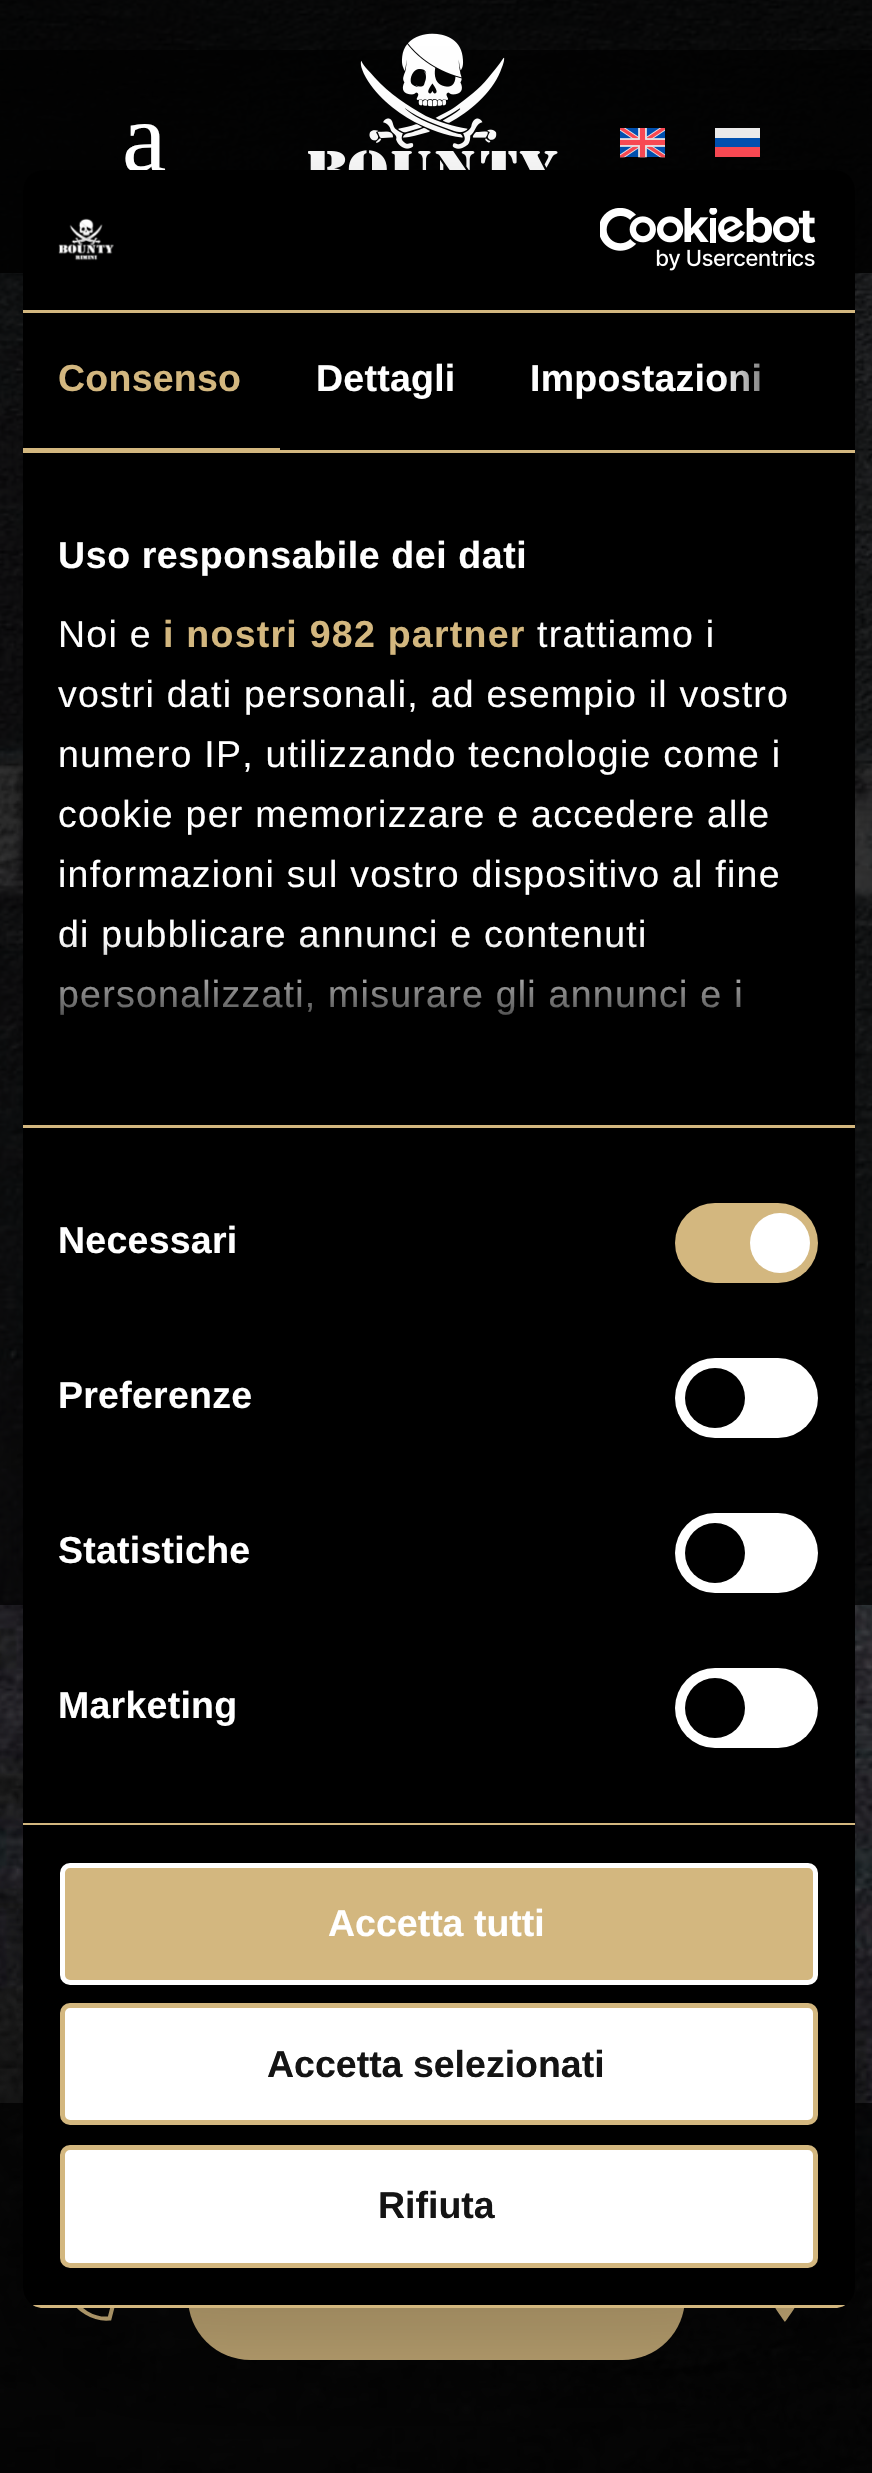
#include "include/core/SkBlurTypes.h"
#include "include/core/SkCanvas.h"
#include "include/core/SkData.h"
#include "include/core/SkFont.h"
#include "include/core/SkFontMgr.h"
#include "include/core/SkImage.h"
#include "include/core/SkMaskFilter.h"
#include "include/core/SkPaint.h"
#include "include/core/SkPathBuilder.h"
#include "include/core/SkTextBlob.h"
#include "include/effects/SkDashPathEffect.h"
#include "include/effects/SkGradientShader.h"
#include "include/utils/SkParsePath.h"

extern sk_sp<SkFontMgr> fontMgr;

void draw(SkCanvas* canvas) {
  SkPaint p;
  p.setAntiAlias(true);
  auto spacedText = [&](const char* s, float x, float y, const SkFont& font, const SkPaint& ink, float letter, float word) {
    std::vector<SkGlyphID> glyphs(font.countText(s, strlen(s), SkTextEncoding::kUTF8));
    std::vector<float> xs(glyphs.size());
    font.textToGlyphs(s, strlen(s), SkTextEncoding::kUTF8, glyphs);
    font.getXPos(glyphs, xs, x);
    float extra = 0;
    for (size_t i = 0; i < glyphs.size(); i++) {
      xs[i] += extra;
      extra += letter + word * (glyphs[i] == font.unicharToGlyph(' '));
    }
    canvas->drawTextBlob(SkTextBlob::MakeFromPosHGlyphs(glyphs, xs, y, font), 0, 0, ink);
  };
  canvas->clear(SK_ColorWHITE);
  canvas->drawImageRect(SkImages::DeferredFromEncodedData(SkData::MakeFromFileName("images/1.png")), SkRect::MakeLTRB(0, 0, 872, 2473), SkSamplingOptions());
  p.setColor(SkColorSetARGB(189, 0, 0, 0));
  canvas->drawRect(SkRect::MakeLTRB(0, 50, 872, 1605), p);
  p.setColor(SkColorSetARGB(232, 0, 0, 0));
  canvas->drawRect(SkRect::MakeLTRB(0, 0, 872, 273), p);
  canvas->drawImageRect(SkImages::DeferredFromEncodedData(SkData::MakeFromFileName("images/2.png")), SkRect::MakeLTRB(308, 33, 558, 170), SkSamplingOptions());
  canvas->drawImageRect(SkImages::DeferredFromEncodedData(SkData::MakeFromFileName("images/3.png")), SkRect::MakeLTRB(620, 128, 665, 158), SkSamplingOptions());
  p.setColor(SkColorSetRGB(240, 240, 240));
  canvas->drawRect(SkRect::MakeLTRB(715, 128, 760, 138), p);
  p.setColor(SkColorSetRGB(0, 82, 180));
  canvas->drawRect(SkRect::MakeLTRB(715, 138, 760, 147), p);
  p.setColor(SkColorSetRGB(255, 75, 85));
  canvas->drawRect(SkRect::MakeLTRB(715, 147, 760, 157), p);
  p.setColor(SkColorSetARGB(196, 0, 0, 0));
  canvas->drawRect(SkRect::MakeLTRB(0, 2103, 872, 2473), p);
  p.setStyle(SkPaint::kStroke_Style);
  p.setStrokeWidth(4.1f);
  p.setColor(SkColorSetRGB(211, 183, 127));
  canvas->drawPath(SkPathBuilder().moveTo(112.5f, 2307).lineTo(98, 2298).lineTo(92.5f, 2303.5f).cubicTo(80, 2295, 74, 2284, 74, 2273.5f).lineTo(81, 2270.5f).lineTo(79, 2253.5f).lineTo(67.5f, 2251).cubicTo(51.5f, 2277, 75.5f, 2321.5f, 109.5f, 2318.5f).close().detach(), p);
  p.setStyle(SkPaint::kFill_Style);
  canvas->drawRoundRect(SkRect::MakeLTRB(188, 2235, 685, 2360), 62.5f, 62.5f, p);
  canvas->drawPath(SkPathBuilder().moveTo(785, 2248).cubicTo(771, 2248, 759, 2259, 759, 2273).cubicTo(759, 2287, 785, 2322, 785, 2322).cubicTo(785, 2322, 811, 2287, 811, 2273).cubicTo(811, 2259, 799, 2248, 785, 2248).close().moveTo(785, 2284).cubicTo(779, 2284, 774, 2279, 775, 2273).cubicTo(775, 2270, 777, 2266, 780, 2265).cubicTo(782, 2263, 785, 2263, 788, 2264).cubicTo(800, 2267, 797, 2284, 785, 2284).close().detach(), p);
  canvas->save();
  canvas->clipPath(SkPathBuilder(SkPathFillType::kEvenOdd).moveTo(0, 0).lineTo(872, 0).lineTo(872, 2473).lineTo(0, 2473).close().moveTo(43, 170).lineTo(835, 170).cubicTo(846, 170, 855, 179, 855, 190).lineTo(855, 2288).cubicTo(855, 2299, 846, 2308, 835, 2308).lineTo(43, 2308).cubicTo(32, 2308, 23, 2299, 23, 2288).lineTo(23, 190).cubicTo(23, 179, 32, 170, 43, 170).close().detach(), true);
  p.setColor(SkColorSetARGB(77, 0, 0, 0));
  p.setMaskFilter(SkMaskFilter::MakeBlur(kNormal_SkBlurStyle, 85));
  canvas->drawRoundRect(SkRect::MakeLTRB(23, 250, 855, 2388), 20, 20, p);
  p.setMaskFilter(nullptr);
  canvas->restore();
  SkFont font1(fontMgr->matchFamilyStyle("Liberation Serif", SkFontStyle::Normal()), 100);
  font1.setSubpixel(true);
  p.setColor(SK_ColorWHITE);
  canvas->drawString("a", 122, 171, font1, p);
  p.setColor(SK_ColorBLACK);
  canvas->drawRoundRect(SkRect::MakeLTRB(23, 170, 855, 2308), 20, 20, p);
  p.setColor(SkColorSetRGB(211, 183, 127));
  canvas->drawRect(SkRect::MakeLTRB(23, 310, 855, 313), p);
  canvas->drawImageRect(SkImages::DeferredFromEncodedData(SkData::MakeFromFileName("images/4.png")), SkRect::MakeLTRB(58, 218, 114, 261), SkSamplingOptions());
  canvas->drawImageRect(SkImages::DeferredFromEncodedData(SkData::MakeFromFileName("images/5.png")), SkRect::MakeLTRB(600, 208, 816, 271), SkSamplingOptions());
  canvas->drawRect(SkRect::MakeLTRB(23, 450, 855, 453), p);
  canvas->drawRect(SkRect::MakeLTRB(23, 448, 280, 450), p);
  SkFont font2(fontMgr->matchFamilyStyle("Liberation Sans", SkFontStyle::Bold()), 37.5f);
  font2.setSubpixel(true);
  spacedText("Consenso", 58, 391, font2, p, 0.25f, 0);
  p.setColor(SK_ColorWHITE);
  spacedText("Dettagli", 316, 391, font2, p, 0.25f, 0);
  spacedText("Impostazioni", 530, 391, font2, p, 0.25f, 0);
  {
    const SkColor colors[] = {SK_ColorBLACK, SkColorSetARGB(204, 0, 0, 0), SkColorSetARGB(0, 0, 0, 0)};
    const float stops[] = {0, 0.5f, 1};
    const SkPoint ends[] = {{854, 381}, {721, 381}};
    p.setShader(SkGradientShader::MakeLinear(ends, colors, stops, 3, SkTileMode::kClamp));
    p.setAlpha(255);
  }
  canvas->drawRect(SkRect::MakeLTRB(723, 363, 760, 391), p);
  p.setShader(nullptr);
  p.setColor(SkColorSetRGB(211, 183, 127));
  canvas->drawRect(SkRect::MakeLTRB(23, 1125, 855, 1128), p);
  p.setColor(SK_ColorWHITE);
  spacedText("Uso responsabile dei dati", 58, 568, font2, p, 0.6f, 0);
  SkFont font3(fontMgr->matchFamilyStyle("Liberation Sans", SkFontStyle::Normal()), 37.5f);
  font3.setSubpixel(true);
  spacedText("Noi e", 58, 647, font3, p, 1.25f, 0);
  p.setColor(SkColorSetRGB(211, 183, 127));
  spacedText("i nostri 982 partner", 163, 647, font2, p, 1.25f, 0);
  p.setColor(SK_ColorWHITE);
  spacedText("trattiamo i", 537, 647, font3, p, 1.25f, 0);
  spacedText("vostri dati personali, ad esempio il vostro", 58, 707, font3, p, 1.25f, 0);
  spacedText("numero IP, utilizzando tecnologie come i", 58, 767, font3, p, 1.25f, 0);
  spacedText("cookie per memorizzare e accedere alle", 58, 827, font3, p, 1.25f, 0);
  spacedText("informazioni sul vostro dispositivo al fine", 58, 887, font3, p, 1.25f, 0);
  spacedText("di pubblicare annunci e contenuti", 58, 947, font3, p, 1.25f, 0);
  spacedText("personalizzati, misurare gli annunci e i", 58, 1007, font3, p, 1.25f, 0);
  {
    const SkColor colors[] = {SK_ColorBLACK, SkColorSetARGB(204, 0, 0, 0), SkColorSetARGB(0, 0, 0, 0)};
    const float stops[] = {0, 0.5f, 1};
    const SkPoint ends[] = {{421, 1124}, {421, 937}};
    p.setShader(SkGradientShader::MakeLinear(ends, colors, stops, 3, SkTileMode::kClamp));
    p.setAlpha(255);
  }
  canvas->drawRect(SkRect::MakeLTRB(59, 940, 740, 1015), p);
  p.setShader(nullptr);
  p.setColor(SkColorSetRGB(211, 183, 127));
  canvas->drawRect(SkRect::MakeLTRB(23, 1823, 855, 1825), p);
  p.setColor(SK_ColorWHITE);
  spacedText("Necessari", 58, 1253, font2, p, 0.25f, 0);
  p.setColor(SkColorSetRGB(211, 183, 127));
  canvas->drawRoundRect(SkRect::MakeLTRB(675, 1203, 818, 1283), 40, 40, p);
  p.setColor(SK_ColorWHITE);
  canvas->drawCircle(780, 1243, 30, p);
  spacedText("Preferenze", 58, 1408, font2, p, 0.25f, 0);
  canvas->drawRoundRect(SkRect::MakeLTRB(675, 1358, 818, 1438), 40, 40, p);
  p.setColor(SK_ColorBLACK);
  canvas->drawCircle(715, 1398, 30, p);
  p.setColor(SK_ColorWHITE);
  spacedText("Statistiche", 58, 1563, font2, p, 0.25f, 0);
  canvas->drawRoundRect(SkRect::MakeLTRB(675, 1513, 818, 1593), 40, 40, p);
  p.setColor(SK_ColorBLACK);
  canvas->drawCircle(715, 1553, 30, p);
  p.setColor(SK_ColorWHITE);
  spacedText("Marketing", 58, 1718, font2, p, 0.25f, 0);
  canvas->drawRoundRect(SkRect::MakeLTRB(675, 1668, 818, 1748), 40, 40, p);
  p.setColor(SK_ColorBLACK);
  canvas->drawCircle(715, 1708, 30, p);
  canvas->save();
  canvas->clipPath(SkPathBuilder().moveTo(43, 170).lineTo(835, 170).cubicTo(846, 170, 855, 179, 855, 190).lineTo(855, 2288).cubicTo(855, 2299, 846, 2308, 835, 2308).lineTo(43, 2308).cubicTo(32, 2308, 23, 2299, 23, 2288).lineTo(23, 190).cubicTo(23, 179, 32, 170, 43, 170).close().detach(), true);
  p.setColor(SkColorSetRGB(211, 183, 127));
  canvas->drawRect(SkRect::MakeLTRB(32, 2305, 846, 2308), p);
  canvas->restore();
  canvas->drawRoundRect(SkRect::MakeLTRB(62.5f, 1865.5f, 815.5f, 1982.5f), 7.5f, 7.5f, p);
  p.setStyle(SkPaint::kStroke_Style);
  p.setStrokeWidth(5);
  p.setColor(SK_ColorWHITE);
  canvas->drawRoundRect(SkRect::MakeLTRB(62.5f, 1865.5f, 815.5f, 1982.5f), 7.5f, 7.5f, p);
  p.setStyle(SkPaint::kFill_Style);
  canvas->drawString("Accetta tutti", 328, 1936, font2, p);
  canvas->drawRoundRect(SkRect::MakeLTRB(62.5f, 2005.5f, 815.5f, 2122.5f), 7.5f, 7.5f, p);
  p.setStyle(SkPaint::kStroke_Style);
  p.setColor(SkColorSetRGB(211, 183, 127));
  canvas->drawRoundRect(SkRect::MakeLTRB(62.5f, 2005.5f, 815.5f, 2122.5f), 7.5f, 7.5f, p);
  p.setStyle(SkPaint::kFill_Style);
  p.setColor(SkColorSetRGB(20, 20, 20));
  canvas->drawString("Accetta selezionati", 267, 2077, font2, p);
  p.setColor(SK_ColorWHITE);
  canvas->drawRoundRect(SkRect::MakeLTRB(62.5f, 2147.5f, 815.5f, 2265.5f), 7.5f, 7.5f, p);
  p.setStyle(SkPaint::kStroke_Style);
  p.setColor(SkColorSetRGB(211, 183, 127));
  canvas->drawRoundRect(SkRect::MakeLTRB(62.5f, 2147.5f, 815.5f, 2265.5f), 7.5f, 7.5f, p);
  p.setStyle(SkPaint::kFill_Style);
  p.setColor(SkColorSetRGB(20, 20, 20));
  canvas->drawString("Rifiuta", 378, 2218, font2, p);
}
